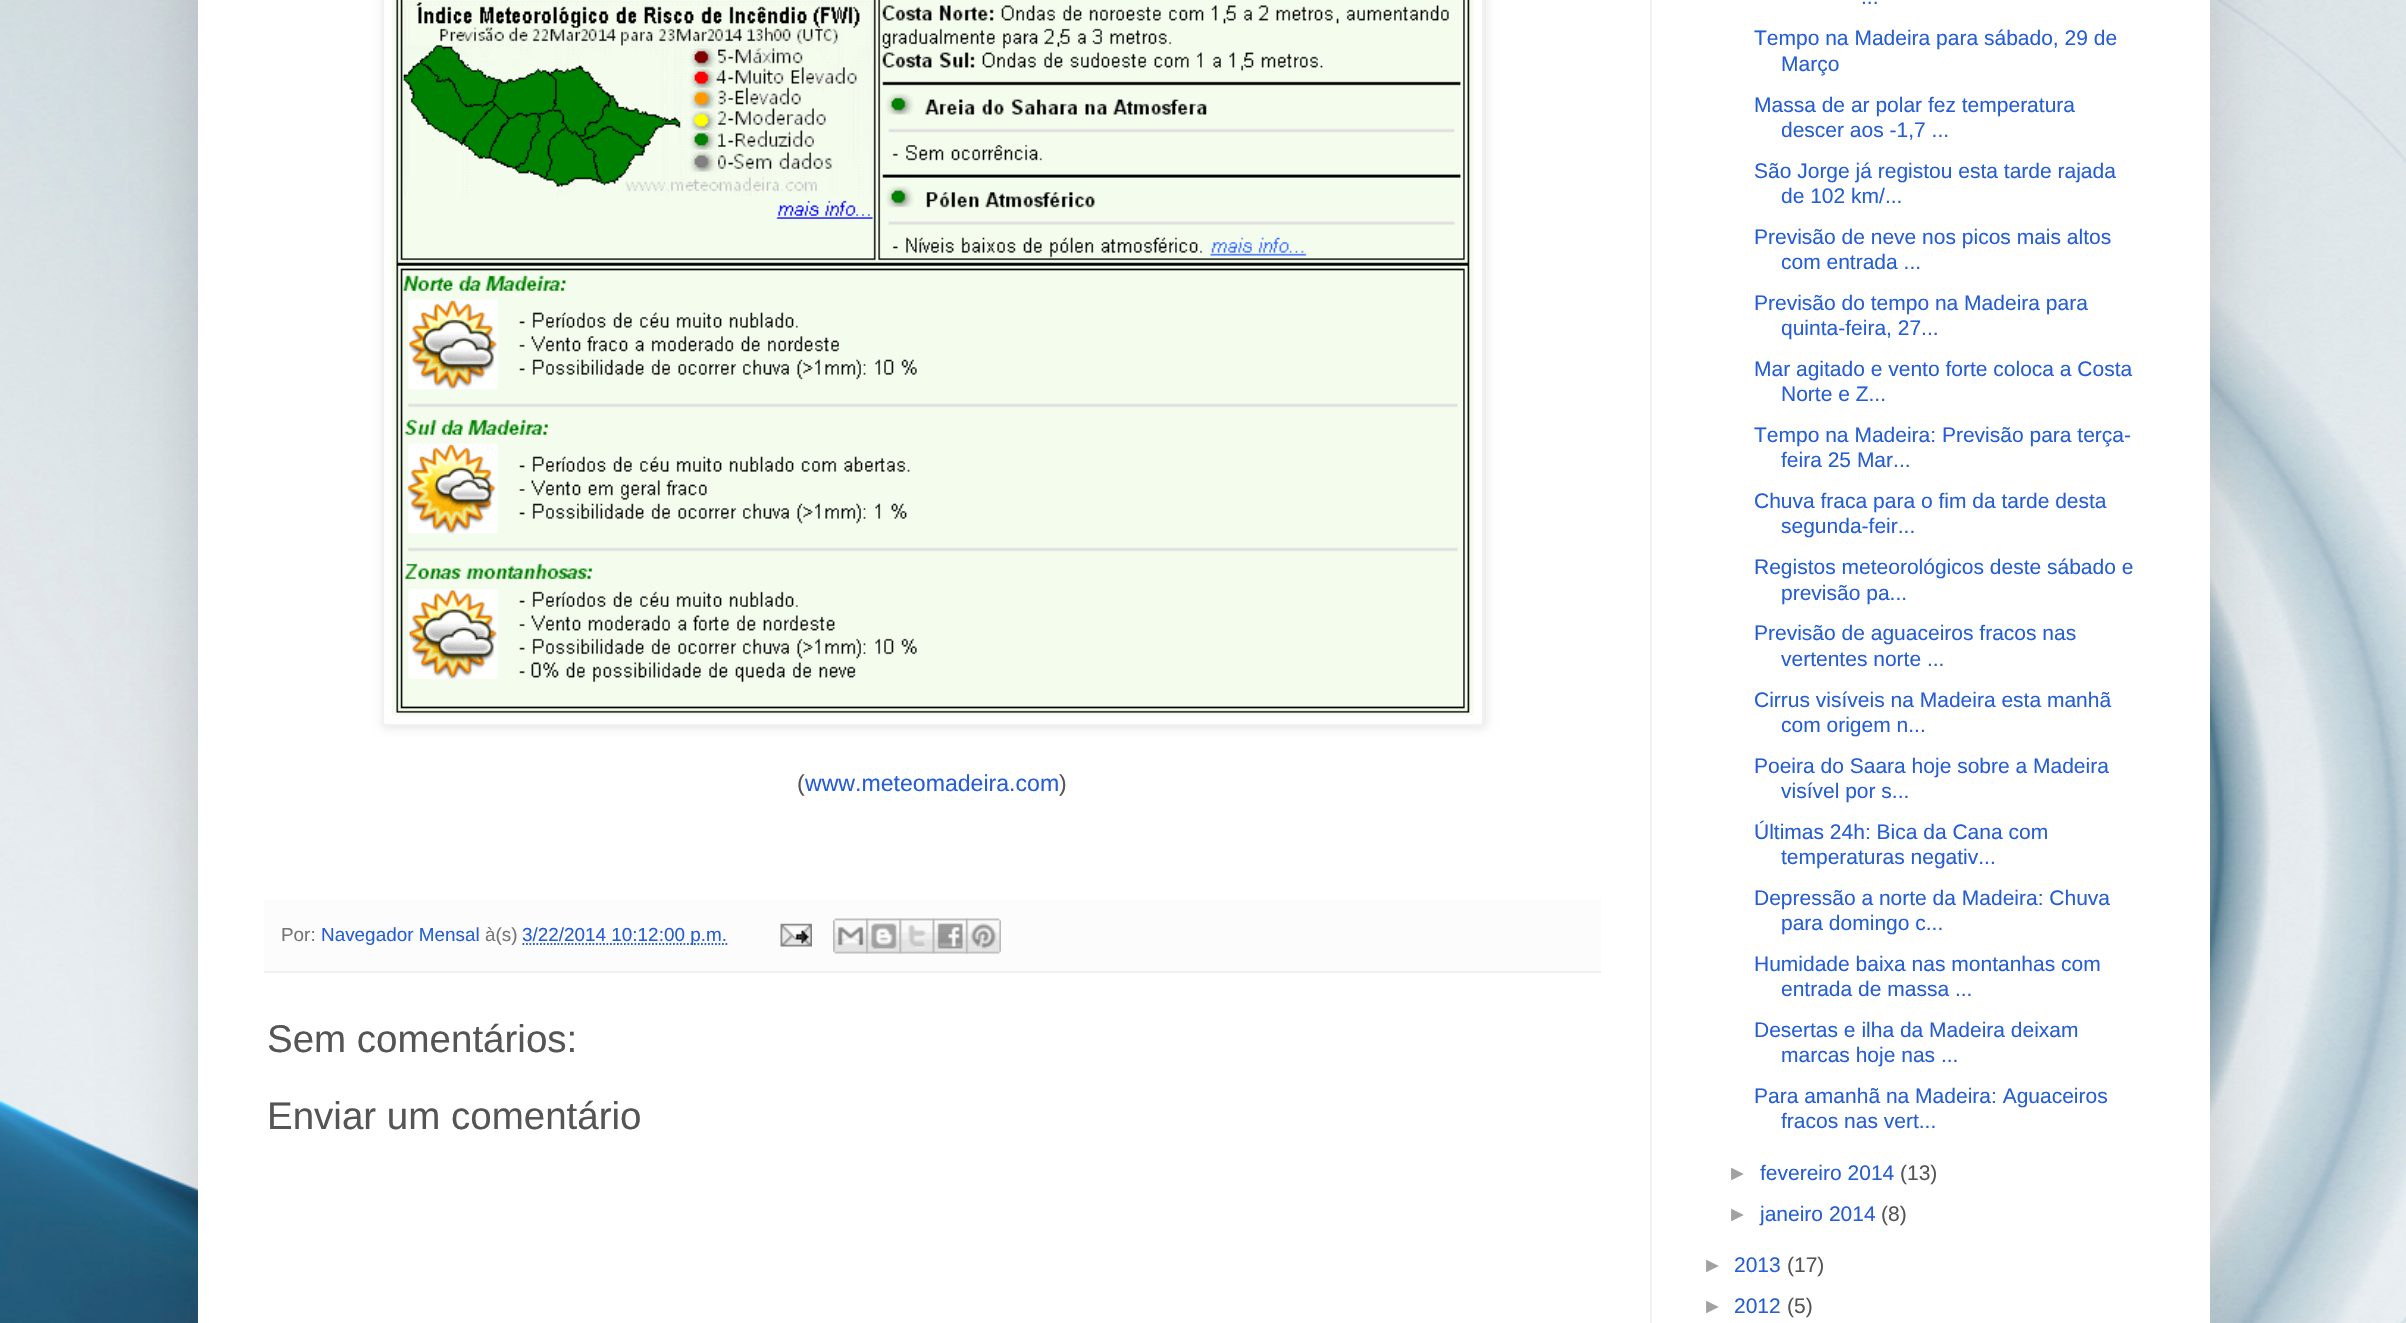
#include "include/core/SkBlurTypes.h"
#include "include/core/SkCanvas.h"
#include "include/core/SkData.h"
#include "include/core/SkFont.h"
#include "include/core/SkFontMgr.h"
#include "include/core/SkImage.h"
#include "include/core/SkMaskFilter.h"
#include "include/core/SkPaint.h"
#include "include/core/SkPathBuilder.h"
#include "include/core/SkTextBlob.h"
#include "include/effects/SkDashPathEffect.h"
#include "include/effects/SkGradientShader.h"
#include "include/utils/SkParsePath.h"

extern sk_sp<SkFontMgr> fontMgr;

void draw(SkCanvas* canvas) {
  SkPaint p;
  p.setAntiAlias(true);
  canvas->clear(SK_ColorWHITE);
  canvas->drawImageRect(SkImages::DeferredFromEncodedData(SkData::MakeFromFileName("images/1.png")), SkRect::MakeLTRB(0, 0, 2406, 1323), SkSamplingOptions());
  p.setColor(SkColorSetARGB(38, 0, 0, 0));
  p.setMaskFilter(SkMaskFilter::MakeBlur(kNormal_SkBlurStyle, 35));
  canvas->drawRect(SkRect::MakeLTRB(198, -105, 2210, 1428), p);
  p.setMaskFilter(nullptr);
  p.setColor(SK_ColorWHITE);
  canvas->drawRect(SkRect::MakeLTRB(198, 0, 2210, 1323), p);
  p.setColor(SkColorSetRGB(241, 241, 241));
  canvas->drawRect(SkRect::MakeLTRB(1650, 0, 1652, 1323), p);
  canvas->save();
  canvas->clipPath(SkPathBuilder(SkPathFillType::kEvenOdd).moveTo(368, 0).lineTo(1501, 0).lineTo(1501, 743).lineTo(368, 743).close().moveTo(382, -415).lineTo(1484, -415).lineTo(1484, 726).lineTo(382, 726).close().detach(), true);
  p.setColor(SkColorSetARGB(26, 0, 0, 0));
  p.setMaskFilter(SkMaskFilter::MakeBlur(kNormal_SkBlurStyle, 4.5f));
  canvas->drawRect(SkRect::MakeLTRB(383, -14, 1486, 728), p);
  p.setMaskFilter(nullptr);
  canvas->restore();
  p.setStyle(SkPaint::kStroke_Style);
  p.setStrokeWidth(2);
  p.setColor(SkColorSetRGB(241, 241, 241));
  canvas->drawRect(SkRect::MakeLTRB(383, -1, 1483, 725), p);
  canvas->drawImageRect(SkImages::DeferredFromEncodedData(SkData::MakeFromFileName("images/2.png")), SkRect::MakeLTRB(392, 0, 1474, 716), SkSamplingOptions());
  p.setStyle(SkPaint::kFill_Style);
  p.setColor(SkColorSetRGB(252, 252, 252));
  canvas->drawRect(SkRect::MakeLTRB(264, 900, 1601, 971), p);
  p.setColor(SkColorSetRGB(241, 241, 241));
  canvas->drawRect(SkRect::MakeLTRB(264, 971, 1601, 973), p);
  p.setStyle(SkPaint::kStroke_Style);
  p.setStrokeWidth(1.8f);
  p.setColor(SkColorSetRGB(38, 94, 211));
  p.setPathEffect(SkDashPathEffect::Make({{1.75f, 1.75f}}, 0));
  canvas->drawPath(SkPathBuilder().moveTo(522.5f, 944).lineTo(727.5f, 944).detach(), p);
  p.setPathEffect(nullptr);
  canvas->drawImageRect(SkImages::DeferredFromEncodedData(SkData::MakeFromFileName("images/3.png")), SkRect::MakeLTRB(780, 923, 812, 947), SkSamplingOptions());
  canvas->drawImageRect(SkImages::DeferredFromEncodedData(SkData::MakeFromFileName("images/4.png")), SkRect::MakeLTRB(833, 918, 868, 954), SkSamplingOptions());
  canvas->drawImageRect(SkImages::DeferredFromEncodedData(SkData::MakeFromFileName("images/5.png")), SkRect::MakeLTRB(866, 918, 902, 954), SkSamplingOptions());
  canvas->drawImageRect(SkImages::DeferredFromEncodedData(SkData::MakeFromFileName("images/6.png")), SkRect::MakeLTRB(899, 918, 935, 954), SkSamplingOptions());
  canvas->drawImageRect(SkImages::DeferredFromEncodedData(SkData::MakeFromFileName("images/7.png")), SkRect::MakeLTRB(932, 918, 968, 954), SkSamplingOptions());
  canvas->drawImageRect(SkImages::DeferredFromEncodedData(SkData::MakeFromFileName("images/8.png")), SkRect::MakeLTRB(966, 918, 1001, 954), SkSamplingOptions());
  SkFont font1(fontMgr->matchFamilyStyle("Liberation Sans", SkFontStyle::Normal()), 23.1f);
  font1.setSubpixel(true);
  p.setStyle(SkPaint::kFill_Style);
  p.setColor(SkColorSetRGB(85, 85, 85));
  canvas->drawString("(", 797, 791, font1, p);
  p.setColor(SkColorSetRGB(38, 94, 211));
  canvas->drawString("www.meteomadeira.com", 805, 791, font1, p);
  p.setColor(SkColorSetRGB(85, 85, 85));
  canvas->drawString(")", 1059, 791, font1, p);
  SkFont font2(fontMgr->matchFamilyStyle("Liberation Sans", SkFontStyle::Normal()), 18.9f);
  font2.setSubpixel(true);
  p.setColor(SkColorSetRGB(118, 118, 118));
  canvas->drawString("Por:", 281, 941, font2, p);
  p.setColor(SkColorSetRGB(38, 94, 211));
  canvas->drawString("Navegador Mensal", 321, 941, font2, p);
  p.setColor(SkColorSetRGB(118, 118, 118));
  canvas->drawString("à(s)", 485, 941, font2, p);
  p.setColor(SkColorSetRGB(38, 94, 211));
  canvas->drawString("3/22/2014 10:12:00 p.m.", 522, 941, font2, p);
  SkFont font3(fontMgr->matchFamilyStyle("Liberation Sans", SkFontStyle::Normal()), 38.5f);
  font3.setSubpixel(true);
  p.setColor(SkColorSetRGB(85, 85, 85));
  canvas->drawString("Sem comentários:", 267, 1052, font3, p);
  canvas->drawString("Enviar um comentário", 267, 1129, font3, p);
  SkFont font4(fontMgr->matchFamilyStyle("Liberation Sans", SkFontStyle::Normal()), 21);
  font4.setSubpixel(true);
  p.setColor(SkColorSetRGB(38, 94, 211));
  canvas->drawString("...", 1861, 4, font4, p);
  canvas->drawString("Tempo na Madeira para sábado, 29 de", 1754, 45, font4, p);
  canvas->drawString("Março", 1781, 71, font4, p);
  canvas->drawString("Massa de ar polar fez temperatura", 1754, 112, font4, p);
  canvas->drawString("descer aos -1,7 ...", 1781, 137, font4, p);
  canvas->drawString("São Jorge já registou esta tarde rajada", 1754, 178, font4, p);
  canvas->drawString("de 102 km/...", 1781, 203, font4, p);
  canvas->drawString("Previsão de neve nos picos mais altos", 1754, 244, font4, p);
  canvas->drawString("com entrada ...", 1781, 269, font4, p);
  canvas->drawString("Previsão do tempo na Madeira para", 1754, 310, font4, p);
  canvas->drawString("quinta-feira, 27...", 1781, 335, font4, p);
  canvas->drawString("Mar agitado e vento forte coloca a Costa", 1754, 376, font4, p);
  canvas->drawString("Norte e Z...", 1781, 401, font4, p);
  canvas->drawString("Tempo na Madeira: Previsão para terça-", 1754, 442, font4, p);
  canvas->drawString("feira 25 Mar...", 1781, 467, font4, p);
  canvas->drawString("Chuva fraca para o fim da tarde desta", 1754, 508, font4, p);
  canvas->drawString("segunda-feir...", 1781, 533, font4, p);
  canvas->drawString("Registos meteorológicos deste sábado e", 1754, 574, font4, p);
  canvas->drawString("previsão pa...", 1781, 600, font4, p);
  canvas->drawString("Previsão de aguaceiros fracos nas", 1754, 640, font4, p);
  canvas->drawString("vertentes norte ...", 1781, 666, font4, p);
  canvas->drawString("Cirrus visíveis na Madeira esta manhã", 1754, 707, font4, p);
  canvas->drawString("com origem n...", 1781, 732, font4, p);
  canvas->drawString("Poeira do Saara hoje sobre a Madeira", 1754, 773, font4, p);
  canvas->drawString("visível por s...", 1781, 798, font4, p);
  canvas->drawString("Últimas 24h: Bica da Cana com", 1754, 839, font4, p);
  canvas->drawString("temperaturas negativ...", 1781, 864, font4, p);
  canvas->drawString("Depressão a norte da Madeira: Chuva", 1754, 905, font4, p);
  canvas->drawString("para domingo c...", 1781, 930, font4, p);
  canvas->drawString("Humidade baixa nas montanhas com", 1754, 971, font4, p);
  canvas->drawString("entrada de massa ...", 1781, 996, font4, p);
  canvas->drawString("Desertas e ilha da Madeira deixam", 1754, 1037, font4, p);
  canvas->drawString("marcas hoje nas ...", 1781, 1062, font4, p);
  canvas->drawString("Para amanhã na Madeira: Aguaceiros", 1754, 1103, font4, p);
  canvas->drawString("fracos nas vert...", 1781, 1128, font4, p);
  p.setColor(SkColorSetRGB(161, 161, 161));
  canvas->drawString("►", 1727, 1180, font4, p);
  p.setColor(SkColorSetRGB(38, 94, 211));
  canvas->drawString("fevereiro 2014", 1760, 1180, font4, p);
  p.setColor(SkColorSetRGB(85, 85, 85));
  canvas->drawString("(13)", 1900, 1180, font4, p);
  p.setColor(SkColorSetRGB(161, 161, 161));
  canvas->drawString("►", 1727, 1221, font4, p);
  p.setColor(SkColorSetRGB(38, 94, 211));
  canvas->drawString("janeiro 2014", 1760, 1221, font4, p);
  p.setColor(SkColorSetRGB(85, 85, 85));
  canvas->drawString("(8)", 1881, 1221, font4, p);
  p.setColor(SkColorSetRGB(161, 161, 161));
  canvas->drawString("►", 1702, 1272, font4, p);
  p.setColor(SkColorSetRGB(38, 94, 211));
  canvas->drawString("2013", 1734, 1272, font4, p);
  p.setColor(SkColorSetRGB(85, 85, 85));
  canvas->drawString("(17)", 1787, 1272, font4, p);
  p.setColor(SkColorSetRGB(161, 161, 161));
  canvas->drawString("►", 1702, 1313, font4, p);
  p.setColor(SkColorSetRGB(38, 94, 211));
  canvas->drawString("2012", 1734, 1313, font4, p);
  p.setColor(SkColorSetRGB(85, 85, 85));
  canvas->drawString("(5)", 1787, 1313, font4, p);
}
